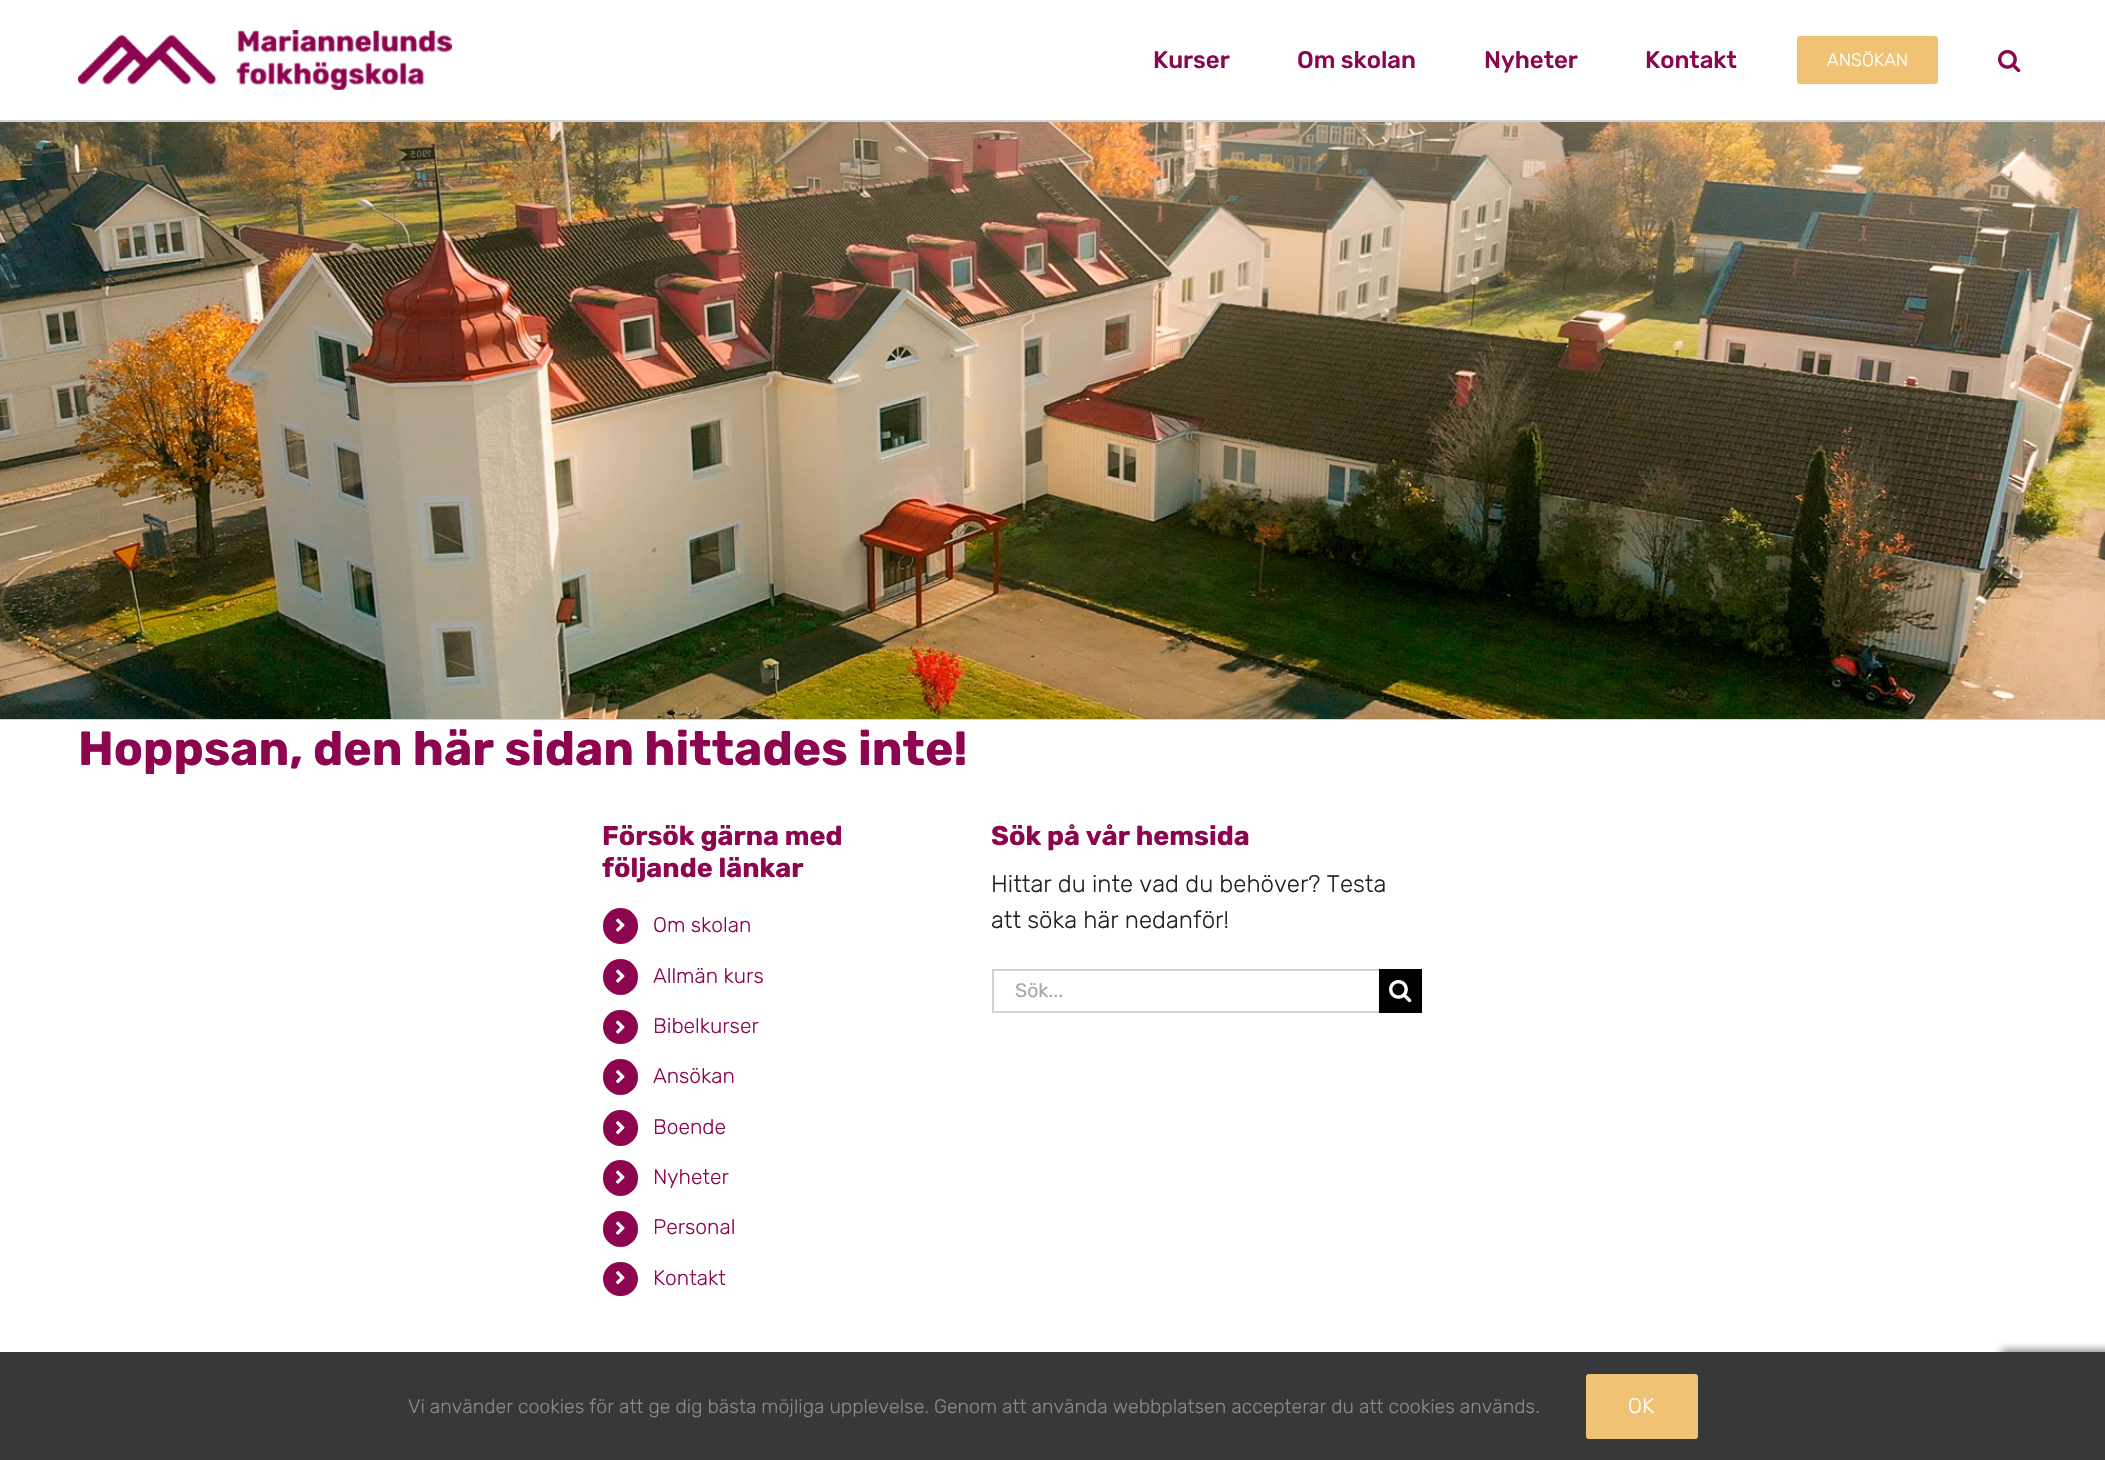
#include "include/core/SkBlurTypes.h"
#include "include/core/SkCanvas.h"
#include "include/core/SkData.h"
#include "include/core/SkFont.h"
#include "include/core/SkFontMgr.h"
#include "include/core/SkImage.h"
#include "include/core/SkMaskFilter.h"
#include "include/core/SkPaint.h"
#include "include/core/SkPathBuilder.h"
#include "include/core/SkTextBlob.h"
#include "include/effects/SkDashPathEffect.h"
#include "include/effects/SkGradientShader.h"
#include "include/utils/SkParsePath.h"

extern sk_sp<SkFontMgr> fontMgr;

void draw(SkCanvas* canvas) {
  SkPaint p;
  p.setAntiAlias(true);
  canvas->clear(SK_ColorWHITE);
  canvas->drawImageRect(SkImages::DeferredFromEncodedData(SkData::MakeFromFileName("images/1.png")), SkRect::MakeLTRB(78, 30, 452, 90), SkSamplingOptions());
  p.setColor(SkColorSetRGB(239, 195, 115));
  canvas->drawRoundRect(SkRect::MakeLTRB(1797, 36, 1938, 84), 3, 3, p);
  canvas->drawImageRect(SkImages::DeferredFromEncodedData(SkData::MakeFromFileName("images/2.png")), SkRect::MakeLTRB(1998, 49, 2021, 73), SkSamplingOptions());
  canvas->drawImageRect(SkImages::DeferredFromEncodedData(SkData::MakeFromFileName("images/3.png")), SkRect::MakeLTRB(0, 122, 2105, 719), SkSamplingOptions());
  p.setColor(SkColorSetRGB(210, 211, 212));
  canvas->drawRect(SkRect::MakeLTRB(0, 120, 2105, 122), p);
  canvas->drawRect(SkRect::MakeLTRB(0, 719, 2105, 720), p);
  p.setColor(SkColorSetRGB(141, 4, 79));
  canvas->drawRoundRect(SkRect::MakeLTRB(603, 908, 638, 944), 17.5f, 17.5f, p);
  canvas->drawImageRect(SkImages::DeferredFromEncodedData(SkData::MakeFromFileName("images/4.png")), SkRect::MakeLTRB(616, 918, 625, 932), SkSamplingOptions());
  canvas->drawRoundRect(SkRect::MakeLTRB(603, 959, 638, 995), 17.5f, 17.5f, p);
  canvas->drawImageRect(SkImages::DeferredFromEncodedData(SkData::MakeFromFileName("images/4.png")), SkRect::MakeLTRB(616, 969, 625, 983), SkSamplingOptions());
  canvas->drawRoundRect(SkRect::MakeLTRB(603, 1010, 638, 1044), 17, 17, p);
  canvas->drawImageRect(SkImages::DeferredFromEncodedData(SkData::MakeFromFileName("images/4.png")), SkRect::MakeLTRB(616, 1020, 625, 1034), SkSamplingOptions());
  canvas->drawRoundRect(SkRect::MakeLTRB(603, 1059, 638, 1095), 17.5f, 17.5f, p);
  canvas->drawImageRect(SkImages::DeferredFromEncodedData(SkData::MakeFromFileName("images/5.png")), SkRect::MakeLTRB(616, 1070, 625, 1084), SkSamplingOptions());
  canvas->drawRoundRect(SkRect::MakeLTRB(603, 1110, 638, 1146), 17.5f, 17.5f, p);
  canvas->drawImageRect(SkImages::DeferredFromEncodedData(SkData::MakeFromFileName("images/5.png")), SkRect::MakeLTRB(616, 1121, 625, 1135), SkSamplingOptions());
  canvas->drawRoundRect(SkRect::MakeLTRB(603, 1160, 638, 1196), 17.5f, 17.5f, p);
  canvas->drawImageRect(SkImages::DeferredFromEncodedData(SkData::MakeFromFileName("images/4.png")), SkRect::MakeLTRB(616, 1170, 625, 1184), SkSamplingOptions());
  canvas->drawRoundRect(SkRect::MakeLTRB(603, 1211, 638, 1247), 17.5f, 17.5f, p);
  canvas->drawImageRect(SkImages::DeferredFromEncodedData(SkData::MakeFromFileName("images/4.png")), SkRect::MakeLTRB(616, 1221, 625, 1235), SkSamplingOptions());
  canvas->drawRoundRect(SkRect::MakeLTRB(603, 1262, 638, 1296), 17, 17, p);
  canvas->drawImageRect(SkImages::DeferredFromEncodedData(SkData::MakeFromFileName("images/5.png")), SkRect::MakeLTRB(616, 1271, 625, 1285), SkSamplingOptions());
  p.setColor(SkColorSetRGB(210, 210, 210));
  canvas->drawRect(SkRect::MakeLTRB(992, 969, 1379, 971), p);
  canvas->drawRect(SkRect::MakeLTRB(992, 1011, 1379, 1013), p);
  canvas->drawRect(SkRect::MakeLTRB(992, 969, 994, 1013), p);
  p.setColor(SK_ColorBLACK);
  canvas->drawRect(SkRect::MakeLTRB(1379, 969, 1422, 1013), p);
  canvas->drawImageRect(SkImages::DeferredFromEncodedData(SkData::MakeFromFileName("images/6.png")), SkRect::MakeLTRB(1389, 979, 1412, 1003), SkSamplingOptions());
  p.setColor(SkColorSetRGB(128, 128, 128));
  p.setMaskFilter(SkMaskFilter::MakeBlur(kNormal_SkBlurStyle, 4));
  canvas->drawRoundRect(SkRect::MakeLTRB(2001, 1350, 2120, 1440), 3, 3, p);
  p.setMaskFilter(nullptr);
  p.setColor(SkColorSetRGB(54, 56, 57));
  canvas->drawRect(SkRect::MakeLTRB(0, 1352, 2105, 1460), p);
  p.setColor(SkColorSetRGB(239, 195, 115));
  canvas->drawRoundRect(SkRect::MakeLTRB(1586, 1374, 1698, 1439), 3, 3, p);
  SkFont font1(fontMgr->matchFamilyStyle("Rubik", SkFontStyle(500, SkFontStyle::kNormal_Width, SkFontStyle::kUpright_Slant)), 24);
  font1.setSubpixel(true);
  p.setColor(SkColorSetRGB(141, 4, 79));
  canvas->drawString("Kurser", 1153, 68, font1, p);
  canvas->drawString("Om skolan", 1297, 68, font1, p);
  canvas->drawString("Nyheter", 1484, 68, font1, p);
  canvas->drawString("Kontakt", 1645, 68, font1, p);
  SkFont font2(fontMgr->matchFamilyStyle("Rubik", SkFontStyle(300, SkFontStyle::kNormal_Width, SkFontStyle::kUpright_Slant)), 18);
  font2.setSubpixel(true);
  p.setColor(SK_ColorWHITE);
  canvas->drawString("ANSÖKAN", 1827, 66, font2, p);
  SkFont font3(fontMgr->matchFamilyStyle("Rubik", SkFontStyle::Bold()), 48);
  font3.setSubpixel(true);
  p.setColor(SkColorSetRGB(141, 4, 79));
  canvas->drawString("Hoppsan, den här sidan hittades inte!", 78, 765, font3, p);
  SkFont font4(fontMgr->matchFamilyStyle("Rubik", SkFontStyle::Bold()), 27);
  font4.setSubpixel(true);
  canvas->drawString("Försök gärna med", 602, 845, font4, p);
  canvas->drawString("följande länkar", 602, 877, font4, p);
  SkFont font5(fontMgr->matchFamilyStyle("Rubik", SkFontStyle(300, SkFontStyle::kNormal_Width, SkFontStyle::kUpright_Slant)), 21);
  font5.setSubpixel(true);
  canvas->drawString("Om skolan", 653, 932, font5, p);
  canvas->drawString("Allmän kurs", 653, 983, font5, p);
  canvas->drawString("Bibelkurser", 653, 1033, font5, p);
  canvas->drawString("Ansökan", 653, 1083, font5, p);
  canvas->drawString("Boende", 653, 1134, font5, p);
  canvas->drawString("Nyheter", 653, 1184, font5, p);
  canvas->drawString("Personal", 653, 1234, font5, p);
  canvas->drawString("Kontakt", 653, 1285, font5, p);
  canvas->drawString("Sök på vår hemsida", 991, 845, font4, p);
  SkFont font6(fontMgr->matchFamilyStyle("Rubik", SkFontStyle(300, SkFontStyle::kNormal_Width, SkFontStyle::kUpright_Slant)), 24);
  font6.setSubpixel(true);
  p.setColor(SkColorSetRGB(35, 32, 33));
  canvas->drawString("Hittar du inte vad du behöver? Testa", 991, 892, font6, p);
  canvas->drawString("att söka här nedanför!", 991, 928, font6, p);
  SkFont font7(fontMgr->matchFamilyStyle("Rubik", SkFontStyle::Normal()), 19.5f);
  font7.setSubpixel(true);
  p.setColor(SkColorSetRGB(170, 169, 169));
  canvas->drawString("Sök...", 1015, 997, font7, p);
  SkFont font8(fontMgr->matchFamilyStyle("Rubik", SkFontStyle(300, SkFontStyle::kNormal_Width, SkFontStyle::kUpright_Slant)), 19.5f);
  font8.setSubpixel(true);
  p.setColor(SkColorSetRGB(140, 137, 137));
  canvas->drawString("Vi använder cookies för att ge dig bästa möjliga upplevelse. Genom att använda webbplatsen accepterar du att cookies används.", 408, 1413, font8, p);
  p.setColor(SK_ColorWHITE);
  canvas->drawString("OK", 1628, 1413, font5, p);
}
